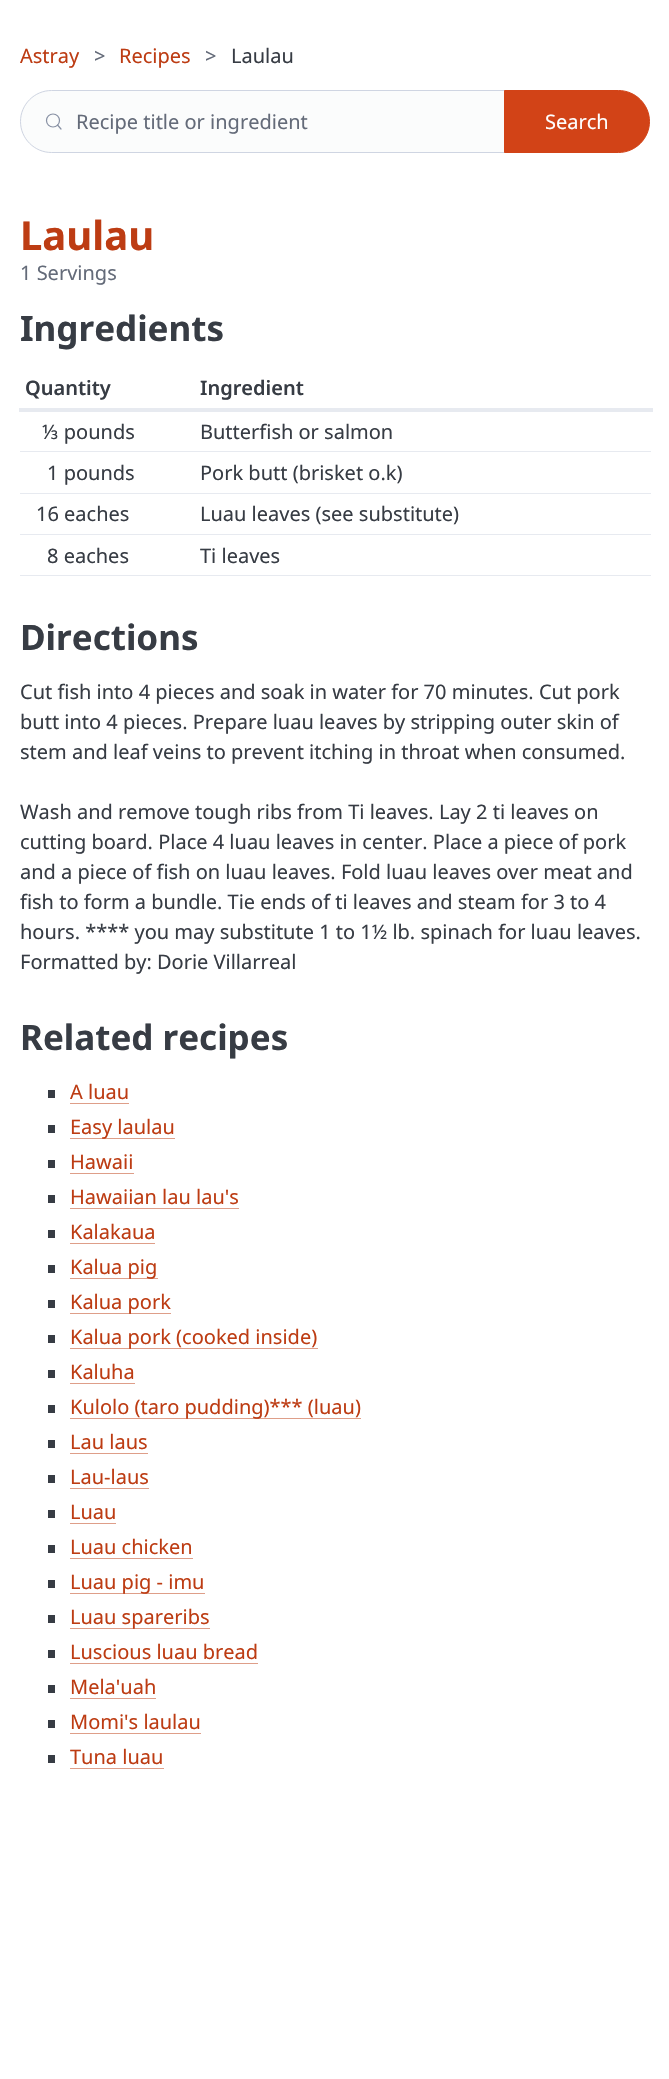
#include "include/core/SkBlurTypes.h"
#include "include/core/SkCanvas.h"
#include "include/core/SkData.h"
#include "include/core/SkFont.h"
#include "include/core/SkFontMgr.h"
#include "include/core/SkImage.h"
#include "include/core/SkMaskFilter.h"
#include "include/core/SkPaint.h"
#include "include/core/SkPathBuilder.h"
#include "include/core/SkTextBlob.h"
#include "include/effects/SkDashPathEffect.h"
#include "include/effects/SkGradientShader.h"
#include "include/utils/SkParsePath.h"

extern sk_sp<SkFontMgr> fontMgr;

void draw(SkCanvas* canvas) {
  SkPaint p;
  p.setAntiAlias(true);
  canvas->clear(SK_ColorWHITE);
  p.setColor(SkColorSetRGB(251, 252, 252));
  canvas->drawPath(SkPathBuilder().moveTo(51.5f, 90).lineTo(505, 90).lineTo(505, 153).lineTo(51.5f, 153).cubicTo(34, 153, 20, 139, 20, 121.5f).cubicTo(20, 104, 34, 90, 51.5f, 90).close().detach(), p);
  p.setStyle(SkPaint::kStroke_Style);
  p.setStrokeWidth(1.2f);
  p.setColor(SkColorSetRGB(136, 145, 164));
  canvas->drawCircle(53, 120.5f, 6.5f, p);
  p.setStrokeCap(SkPaint::kRound_Cap);
  p.setStrokeJoin(SkPaint::kRound_Join);
  canvas->drawPath(SkPathBuilder().moveTo(61, 129).lineTo(57.5f, 125).detach(), p);
  p.setStrokeWidth(1);
  p.setStrokeCap(SkPaint::kButt_Cap);
  p.setStrokeJoin(SkPaint::kMiter_Join);
  p.setColor(SkColorSetRGB(207, 213, 226));
  canvas->drawPath(SkPathBuilder().moveTo(51.5f, 90.5f).lineTo(504.5f, 90.5f).lineTo(504.5f, 152.5f).lineTo(51.5f, 152.5f).cubicTo(34.5f, 152.5f, 20.5f, 138.5f, 20.5f, 121.5f).cubicTo(20.5f, 104.5f, 34.5f, 90.5f, 51.5f, 90.5f).close().detach(), p);
  p.setStyle(SkPaint::kFill_Style);
  p.setColor(SkColorSetRGB(210, 67, 23));
  canvas->drawPath(SkPathBuilder().moveTo(504.5f, 90.5f).lineTo(618.5f, 90.5f).cubicTo(635.5f, 90.5f, 649.5f, 104.5f, 649.5f, 121.5f).cubicTo(649.5f, 138.5f, 635.5f, 152.5f, 618.5f, 152.5f).lineTo(504.5f, 152.5f).close().detach(), p);
  p.setStyle(SkPaint::kStroke_Style);
  canvas->drawPath(SkPathBuilder().moveTo(504.5f, 90.5f).lineTo(618.5f, 90.5f).cubicTo(635.5f, 90.5f, 649.5f, 104.5f, 649.5f, 121.5f).cubicTo(649.5f, 138.5f, 635.5f, 152.5f, 618.5f, 152.5f).lineTo(504.5f, 152.5f).close().detach(), p);
  p.setStyle(SkPaint::kFill_Style);
  p.setColor(SkColorSetRGB(231, 234, 240));
  canvas->drawRect(SkRect::MakeLTRB(19, 408, 653, 412), p);
  canvas->drawRect(SkRect::MakeLTRB(20, 451, 651, 452), p);
  canvas->drawRect(SkRect::MakeLTRB(20, 493, 651, 494), p);
  canvas->drawRect(SkRect::MakeLTRB(20, 534, 651, 535), p);
  canvas->drawRect(SkRect::MakeLTRB(20, 575, 651, 576), p);
  p.setColor(SkColorSetRGB(55, 60, 68));
  canvas->drawRect(SkRect::MakeLTRB(48, 1090, 55, 1098), p);
  p.setColor(SkColorSetRGB(222, 158, 137));
  canvas->drawRect(SkRect::MakeLTRB(70, 1103, 129, 1104), p);
  p.setColor(SkColorSetRGB(55, 60, 68));
  canvas->drawRect(SkRect::MakeLTRB(48, 1125, 55, 1133), p);
  p.setColor(SkColorSetRGB(222, 158, 137));
  canvas->drawRect(SkRect::MakeLTRB(70, 1138, 175, 1139), p);
  p.setColor(SkColorSetRGB(55, 60, 68));
  canvas->drawRect(SkRect::MakeLTRB(48, 1160, 55, 1168), p);
  p.setColor(SkColorSetRGB(222, 158, 137));
  canvas->drawRect(SkRect::MakeLTRB(70, 1173, 134, 1174), p);
  p.setColor(SkColorSetRGB(55, 60, 68));
  canvas->drawRect(SkRect::MakeLTRB(48, 1195, 55, 1203), p);
  p.setColor(SkColorSetRGB(222, 158, 137));
  canvas->drawRect(SkRect::MakeLTRB(70, 1208, 239, 1209), p);
  p.setColor(SkColorSetRGB(55, 60, 68));
  canvas->drawRect(SkRect::MakeLTRB(48, 1230, 55, 1238), p);
  p.setColor(SkColorSetRGB(222, 158, 137));
  canvas->drawRect(SkRect::MakeLTRB(70, 1243, 155, 1244), p);
  p.setColor(SkColorSetRGB(55, 60, 68));
  canvas->drawRect(SkRect::MakeLTRB(48, 1265, 55, 1273), p);
  p.setColor(SkColorSetRGB(222, 158, 137));
  canvas->drawRect(SkRect::MakeLTRB(70, 1278, 158, 1279), p);
  p.setColor(SkColorSetRGB(55, 60, 68));
  canvas->drawRect(SkRect::MakeLTRB(48, 1300, 55, 1308), p);
  p.setColor(SkColorSetRGB(222, 158, 137));
  canvas->drawRect(SkRect::MakeLTRB(70, 1313, 171, 1314), p);
  p.setColor(SkColorSetRGB(55, 60, 68));
  canvas->drawRect(SkRect::MakeLTRB(48, 1335, 55, 1343), p);
  p.setColor(SkColorSetRGB(222, 158, 137));
  canvas->drawRect(SkRect::MakeLTRB(70, 1348, 318, 1349), p);
  p.setColor(SkColorSetRGB(55, 60, 68));
  canvas->drawRect(SkRect::MakeLTRB(48, 1370, 55, 1378), p);
  p.setColor(SkColorSetRGB(222, 158, 137));
  canvas->drawRect(SkRect::MakeLTRB(70, 1383, 135, 1384), p);
  p.setColor(SkColorSetRGB(55, 60, 68));
  canvas->drawRect(SkRect::MakeLTRB(48, 1405, 55, 1413), p);
  p.setColor(SkColorSetRGB(222, 158, 137));
  canvas->drawRect(SkRect::MakeLTRB(70, 1418, 361, 1419), p);
  p.setColor(SkColorSetRGB(55, 60, 68));
  canvas->drawRect(SkRect::MakeLTRB(48, 1440, 55, 1448), p);
  p.setColor(SkColorSetRGB(222, 158, 137));
  canvas->drawRect(SkRect::MakeLTRB(70, 1453, 148, 1454), p);
  p.setColor(SkColorSetRGB(55, 60, 68));
  canvas->drawRect(SkRect::MakeLTRB(48, 1475, 55, 1483), p);
  p.setColor(SkColorSetRGB(222, 158, 137));
  canvas->drawRect(SkRect::MakeLTRB(70, 1488, 149, 1489), p);
  p.setColor(SkColorSetRGB(55, 60, 68));
  canvas->drawRect(SkRect::MakeLTRB(48, 1510, 55, 1518), p);
  p.setColor(SkColorSetRGB(222, 158, 137));
  canvas->drawRect(SkRect::MakeLTRB(70, 1523, 116, 1524), p);
  p.setColor(SkColorSetRGB(55, 60, 68));
  canvas->drawRect(SkRect::MakeLTRB(48, 1545, 55, 1553), p);
  p.setColor(SkColorSetRGB(222, 158, 137));
  canvas->drawRect(SkRect::MakeLTRB(70, 1558, 193, 1559), p);
  p.setColor(SkColorSetRGB(55, 60, 68));
  canvas->drawRect(SkRect::MakeLTRB(48, 1580, 55, 1588), p);
  p.setColor(SkColorSetRGB(222, 158, 137));
  canvas->drawRect(SkRect::MakeLTRB(70, 1593, 205, 1594), p);
  p.setColor(SkColorSetRGB(55, 60, 68));
  canvas->drawRect(SkRect::MakeLTRB(48, 1615, 55, 1623), p);
  p.setColor(SkColorSetRGB(222, 158, 137));
  canvas->drawRect(SkRect::MakeLTRB(70, 1628, 210, 1629), p);
  p.setColor(SkColorSetRGB(55, 60, 68));
  canvas->drawRect(SkRect::MakeLTRB(48, 1650, 55, 1658), p);
  p.setColor(SkColorSetRGB(222, 158, 137));
  canvas->drawRect(SkRect::MakeLTRB(70, 1663, 258, 1664), p);
  p.setColor(SkColorSetRGB(55, 60, 68));
  canvas->drawRect(SkRect::MakeLTRB(48, 1685, 55, 1693), p);
  p.setColor(SkColorSetRGB(222, 158, 137));
  canvas->drawRect(SkRect::MakeLTRB(70, 1698, 156, 1699), p);
  p.setColor(SkColorSetRGB(55, 60, 68));
  canvas->drawRect(SkRect::MakeLTRB(48, 1720, 55, 1728), p);
  p.setColor(SkColorSetRGB(222, 158, 137));
  canvas->drawRect(SkRect::MakeLTRB(70, 1733, 201, 1734), p);
  p.setColor(SkColorSetRGB(55, 60, 68));
  canvas->drawRect(SkRect::MakeLTRB(48, 1755, 55, 1763), p);
  p.setColor(SkColorSetRGB(222, 158, 137));
  canvas->drawRect(SkRect::MakeLTRB(70, 1768, 164, 1769), p);
  SkFont font1(fontMgr->matchFamilyStyle("Noto Sans", SkFontStyle::Normal()), 20);
  font1.setSubpixel(true);
  p.setColor(SkColorSetRGB(189, 60, 19));
  canvas->drawString("Astray", 20, 63, font1, p);
  p.setColor(SkColorSetRGB(100, 107, 121));
  canvas->drawString(">", 94, 63, font1, p);
  p.setColor(SkColorSetRGB(189, 60, 19));
  canvas->drawString("Recipes", 119, 63, font1, p);
  p.setColor(SkColorSetRGB(100, 107, 121));
  canvas->drawString(">", 205, 63, font1, p);
  p.setColor(SkColorSetRGB(55, 60, 68));
  canvas->drawString("Laulau", 231, 63, font1, p);
  p.setColor(SkColorSetRGB(100, 107, 121));
  canvas->drawString("Recipe title or ingredient", 76, 129, font1, p);
  p.setColor(SK_ColorWHITE);
  canvas->drawString("Search", 545, 129, font1, p);
  SkFont font2(fontMgr->matchFamilyStyle("Noto Sans", SkFontStyle::Bold()), 40);
  font2.setSubpixel(true);
  p.setColor(SkColorSetRGB(189, 60, 19));
  canvas->drawString("Laulau", 20, 250, font2, p);
  p.setColor(SkColorSetRGB(100, 107, 121));
  canvas->drawString("1 Servings", 20, 280, font1, p);
  SkFont font3(fontMgr->matchFamilyStyle("Noto Sans", SkFontStyle::Bold()), 35);
  font3.setSubpixel(true);
  p.setColor(SkColorSetRGB(55, 60, 68));
  canvas->drawString("Ingredients", 20, 341, font3, p);
  SkFont font4(fontMgr->matchFamilyStyle("Noto Sans", SkFontStyle(600, SkFontStyle::kNormal_Width, SkFontStyle::kUpright_Slant)), 20);
  font4.setSubpixel(true);
  canvas->drawString("Quantity", 25, 395, font4, p);
  canvas->drawString("Ingredient", 200, 395, font4, p);
  canvas->drawString("⅓ pounds", 42, 439, font1, p);
  canvas->drawString("Butterfish or salmon", 200, 439, font1, p);
  canvas->drawString("1 pounds", 47, 480, font1, p);
  canvas->drawString("Pork butt (brisket o.k)", 200, 480, font1, p);
  canvas->drawString("16 eaches", 36, 521, font1, p);
  canvas->drawString("Luau leaves (see substitute)", 200, 521, font1, p);
  canvas->drawString("8 eaches", 47, 563, font1, p);
  canvas->drawString("Ti leaves", 200, 563, font1, p);
  canvas->drawString("Directions", 20, 650, font3, p);
  canvas->drawString("Cut fish into 4 pieces and soak in water for 70 minutes. Cut pork", 20, 699, font1, p);
  canvas->drawString("butt into 4 pieces. Prepare luau leaves by stripping outer skin of", 20, 729, font1, p);
  canvas->drawString("stem and leaf veins to prevent itching in throat when consumed.", 20, 759, font1, p);
  canvas->drawString("Wash and remove tough ribs from Ti leaves. Lay 2 ti leaves on", 20, 819, font1, p);
  canvas->drawString("cutting board. Place 4 luau leaves in center. Place a piece of pork", 20, 849, font1, p);
  canvas->drawString("and a piece of fish on luau leaves. Fold luau leaves over meat and", 20, 879, font1, p);
  canvas->drawString("fish to form a bundle. Tie ends of ti leaves and steam for 3 to 4", 20, 909, font1, p);
  canvas->drawString("hours. **** you may substitute 1 to 1½ lb. spinach for luau leaves.", 20, 939, font1, p);
  canvas->drawString("Formatted by: Dorie Villarreal", 20, 969, font1, p);
  canvas->drawString("Related recipes", 20, 1050, font3, p);
  p.setColor(SkColorSetRGB(189, 60, 19));
  canvas->drawString("A luau", 70, 1099, font1, p);
  canvas->drawString("Easy laulau", 70, 1134, font1, p);
  canvas->drawString("Hawaii", 70, 1169, font1, p);
  canvas->drawString("Hawaiian lau lau's", 70, 1204, font1, p);
  canvas->drawString("Kalakaua", 70, 1239, font1, p);
  canvas->drawString("Kalua pig", 70, 1274, font1, p);
  canvas->drawString("Kalua pork", 70, 1309, font1, p);
  canvas->drawString("Kalua pork (cooked inside)", 70, 1344, font1, p);
  canvas->drawString("Kaluha", 70, 1379, font1, p);
  canvas->drawString("Kulolo (taro pudding)*** (luau)", 70, 1414, font1, p);
  canvas->drawString("Lau laus", 70, 1449, font1, p);
  canvas->drawString("Lau-laus", 70, 1484, font1, p);
  canvas->drawString("Luau", 70, 1519, font1, p);
  canvas->drawString("Luau chicken", 70, 1554, font1, p);
  canvas->drawString("Luau pig - imu", 70, 1589, font1, p);
  canvas->drawString("Luau spareribs", 70, 1624, font1, p);
  canvas->drawString("Luscious luau bread", 70, 1659, font1, p);
  canvas->drawString("Mela'uah", 70, 1694, font1, p);
  canvas->drawString("Momi's laulau", 70, 1729, font1, p);
  canvas->drawString("Tuna luau", 70, 1764, font1, p);
}
